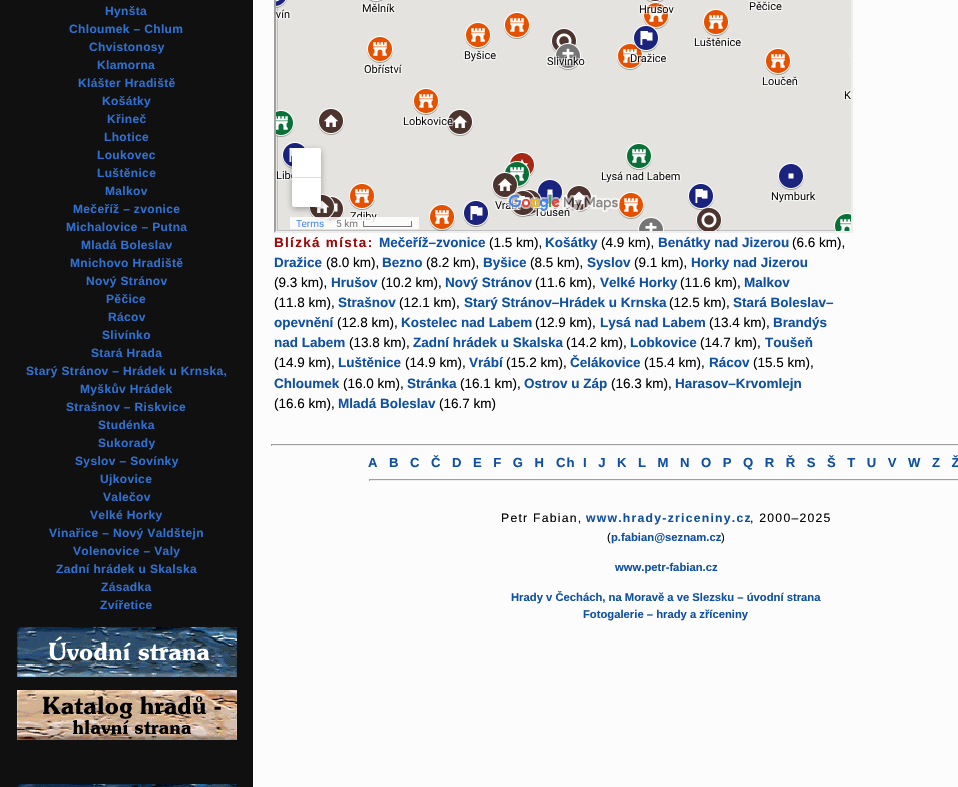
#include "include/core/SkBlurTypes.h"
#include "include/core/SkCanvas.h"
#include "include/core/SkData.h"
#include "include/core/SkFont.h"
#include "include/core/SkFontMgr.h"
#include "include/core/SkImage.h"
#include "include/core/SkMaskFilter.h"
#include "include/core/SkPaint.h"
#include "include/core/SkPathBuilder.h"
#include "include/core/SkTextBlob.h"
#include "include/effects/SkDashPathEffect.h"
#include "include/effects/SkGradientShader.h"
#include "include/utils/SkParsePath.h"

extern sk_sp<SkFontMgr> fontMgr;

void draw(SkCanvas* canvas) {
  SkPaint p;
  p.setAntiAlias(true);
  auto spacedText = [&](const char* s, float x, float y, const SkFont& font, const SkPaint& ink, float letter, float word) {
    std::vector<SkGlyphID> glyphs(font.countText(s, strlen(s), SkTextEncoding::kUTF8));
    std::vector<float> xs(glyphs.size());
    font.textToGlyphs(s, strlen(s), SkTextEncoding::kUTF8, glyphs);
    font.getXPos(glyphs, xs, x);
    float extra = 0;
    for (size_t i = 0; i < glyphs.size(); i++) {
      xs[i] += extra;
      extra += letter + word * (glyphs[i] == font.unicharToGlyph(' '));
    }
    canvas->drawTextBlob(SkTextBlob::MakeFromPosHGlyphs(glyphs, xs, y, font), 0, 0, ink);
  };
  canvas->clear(SkColorSetRGB(252, 252, 252));
  p.setColor(SkColorSetRGB(16, 16, 16));
  canvas->drawRect(SkRect::MakeLTRB(0, 0, 253, 787), p);
  canvas->drawImageRect(SkImages::DeferredFromEncodedData(SkData::MakeFromFileName("images/1.png")), SkRect::MakeLTRB(17, 627, 237, 677), SkSamplingOptions());
  canvas->drawImageRect(SkImages::DeferredFromEncodedData(SkData::MakeFromFileName("images/2.png")), SkRect::MakeLTRB(17, 690, 237, 740), SkSamplingOptions());
  canvas->drawImageRect(SkImages::DeferredFromEncodedData(SkData::MakeFromFileName("images/3.png")), SkRect::MakeLTRB(17, 784, 237, 787), SkSamplingOptions());
  p.setColor(SkColorSetRGB(238, 238, 238));
  canvas->drawPath(SkPathBuilder().moveTo(853, -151).lineTo(853, 233).lineTo(851, 231).lineTo(851, -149).close().detach(), p);
  canvas->drawPath(SkPathBuilder().moveTo(853, 233).lineTo(274, 233).lineTo(276, 231).lineTo(851, 231).close().detach(), p);
  p.setColor(SkColorSetRGB(159, 159, 159));
  canvas->drawPath(SkPathBuilder().moveTo(274, 233).lineTo(274, -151).lineTo(276, -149).lineTo(276, 231).close().detach(), p);
  canvas->drawImageRect(SkImages::DeferredFromEncodedData(SkData::MakeFromFileName("images/4.png")), SkRect::MakeLTRB(276, 0, 851, 231), SkSamplingOptions());
  canvas->drawRect(SkRect::MakeLTRB(271, 444, 958, 445), p);
  p.setColor(SkColorSetRGB(238, 238, 238));
  canvas->drawRect(SkRect::MakeLTRB(271, 445, 958, 446), p);
  p.setColor(SkColorSetRGB(159, 159, 159));
  canvas->drawRect(SkRect::MakeLTRB(271, 444, 272, 446), p);
  canvas->drawRect(SkRect::MakeLTRB(369, 479, 958, 480), p);
  p.setColor(SkColorSetRGB(238, 238, 238));
  canvas->drawRect(SkRect::MakeLTRB(369, 480, 958, 481), p);
  p.setColor(SkColorSetRGB(159, 159, 159));
  canvas->drawRect(SkRect::MakeLTRB(369, 479, 370, 481), p);
  SkFont font1(fontMgr->matchFamilyStyle("Liberation Sans", SkFontStyle::Bold()), 12);
  font1.setSubpixel(true);
  p.setColor(SkColorSetRGB(48, 112, 208));
  spacedText("Hynšta", 105, 15, font1, p, 0.35f, 0);
  spacedText("Chloumek – Chlum", 69, 33, font1, p, 0.35f, 0);
  spacedText("Chvistonosy", 89, 51, font1, p, 0.35f, 0);
  spacedText("Klamorna", 97, 69, font1, p, 0.35f, 0);
  spacedText("Klášter Hradiště", 78, 87, font1, p, 0.35f, 0);
  spacedText("Košátky", 102, 105, font1, p, 0.35f, 0);
  spacedText("Křineč", 107, 123, font1, p, 0.35f, 0);
  spacedText("Lhotice", 104, 141, font1, p, 0.35f, 0);
  spacedText("Loukovec", 97, 159, font1, p, 0.35f, 0);
  spacedText("Luštěnice", 97, 177, font1, p, 0.35f, 0);
  spacedText("Malkov", 105, 195, font1, p, 0.35f, 0);
  spacedText("Mečeříž – zvonice", 73, 213, font1, p, 0.35f, 0);
  spacedText("Michalovice – Putna", 66, 231, font1, p, 0.35f, 0);
  spacedText("Mladá Boleslav", 81, 249, font1, p, 0.35f, 0);
  spacedText("Mnichovo Hradiště", 70, 267, font1, p, 0.35f, 0);
  spacedText("Nový Stránov", 86, 285, font1, p, 0.35f, 0);
  spacedText("Pěčice", 106, 303, font1, p, 0.35f, 0);
  spacedText("Rácov", 108, 321, font1, p, 0.35f, 0);
  spacedText("Slivínko", 102, 339, font1, p, 0.35f, 0);
  spacedText("Stará Hrada", 91, 357, font1, p, 0.35f, 0);
  spacedText("Starý Stránov – Hrádek u Krnska,", 26, 375, font1, p, 0.35f, 0);
  spacedText("Myškův Hrádek", 80, 393, font1, p, 0.35f, 0);
  spacedText("Strašnov – Riskvice", 66, 411, font1, p, 0.35f, 0);
  spacedText("Studénka", 98, 429, font1, p, 0.35f, 0);
  spacedText("Sukorady", 98, 447, font1, p, 0.35f, 0);
  spacedText("Syslov – Sovínky", 75, 465, font1, p, 0.35f, 0);
  spacedText("Ujkovice", 100, 483, font1, p, 0.35f, 0);
  spacedText("Valečov", 103, 501, font1, p, 0.35f, 0);
  spacedText("Velké Horky", 90, 519, font1, p, 0.35f, 0);
  spacedText("Vinařice – Nový Valdštejn", 49, 537, font1, p, 0.35f, 0);
  spacedText("Volenovice – Valy", 73, 555, font1, p, 0.35f, 0);
  spacedText("Zadní hrádek u Skalska", 56, 573, font1, p, 0.35f, 0);
  spacedText("Zásadka", 101, 591, font1, p, 0.35f, 0);
  spacedText("Zvířetice", 100, 609, font1, p, 0.35f, 0);
  SkFont font2(fontMgr->matchFamilyStyle("Liberation Sans", SkFontStyle::Bold()), 13.5f);
  font2.setSubpixel(true);
  p.setColor(SkColorSetRGB(155, 11, 11));
  spacedText("Blízká místa:", 274, 247, font2, p, 1.3f, 0);
  p.setColor(SkColorSetRGB(16, 80, 160));
  canvas->drawString("Mečeříž–zvonice", 379, 247, font2, p);
  SkFont font3(fontMgr->matchFamilyStyle("Liberation Sans", SkFontStyle::Normal()), 13.5f);
  font3.setSubpixel(true);
  p.setColor(SK_ColorBLACK);
  canvas->drawString("(1.5 km),", 489, 247, font3, p);
  p.setColor(SkColorSetRGB(16, 80, 160));
  canvas->drawString("Košátky", 545, 247, font2, p);
  p.setColor(SK_ColorBLACK);
  canvas->drawString("(4.9 km),", 601, 247, font3, p);
  p.setColor(SkColorSetRGB(16, 80, 160));
  canvas->drawString("Benátky nad Jizerou", 658, 247, font2, p);
  p.setColor(SK_ColorBLACK);
  canvas->drawString("(6.6 km),", 792, 247, font3, p);
  p.setColor(SkColorSetRGB(16, 80, 160));
  canvas->drawString("Dražice", 274, 267, font2, p);
  p.setColor(SK_ColorBLACK);
  canvas->drawString("(8.0 km),", 326, 267, font3, p);
  p.setColor(SkColorSetRGB(16, 80, 160));
  canvas->drawString("Bezno", 382, 267, font2, p);
  p.setColor(SK_ColorBLACK);
  canvas->drawString("(8.2 km),", 426, 267, font3, p);
  p.setColor(SkColorSetRGB(16, 80, 160));
  canvas->drawString("Byšice", 483, 267, font2, p);
  p.setColor(SK_ColorBLACK);
  canvas->drawString("(8.5 km),", 530, 267, font3, p);
  p.setColor(SkColorSetRGB(16, 80, 160));
  canvas->drawString("Syslov", 587, 267, font2, p);
  p.setColor(SK_ColorBLACK);
  canvas->drawString("(9.1 km),", 634, 267, font3, p);
  p.setColor(SkColorSetRGB(16, 80, 160));
  canvas->drawString("Horky nad Jizerou", 691, 267, font2, p);
  p.setColor(SK_ColorBLACK);
  canvas->drawString("(9.3 km),", 274, 287, font3, p);
  p.setColor(SkColorSetRGB(16, 80, 160));
  canvas->drawString("Hrušov", 331, 287, font2, p);
  p.setColor(SK_ColorBLACK);
  canvas->drawString("(10.2 km),", 381, 287, font3, p);
  p.setColor(SkColorSetRGB(16, 80, 160));
  canvas->drawString("Nový Stránov", 445, 287, font2, p);
  p.setColor(SK_ColorBLACK);
  canvas->drawString("(11.6 km),", 535, 287, font3, p);
  p.setColor(SkColorSetRGB(16, 80, 160));
  canvas->drawString("Velké Horky", 600, 287, font2, p);
  p.setColor(SK_ColorBLACK);
  canvas->drawString("(11.6 km),", 680, 287, font3, p);
  p.setColor(SkColorSetRGB(16, 80, 160));
  canvas->drawString("Malkov", 744, 287, font2, p);
  p.setColor(SK_ColorBLACK);
  canvas->drawString("(11.8 km),", 274, 307, font3, p);
  p.setColor(SkColorSetRGB(16, 80, 160));
  canvas->drawString("Strašnov", 338, 307, font2, p);
  p.setColor(SK_ColorBLACK);
  canvas->drawString("(12.1 km),", 399, 307, font3, p);
  p.setColor(SkColorSetRGB(16, 80, 160));
  canvas->drawString("Starý Stránov–Hrádek u Krnska", 464, 307, font2, p);
  p.setColor(SK_ColorBLACK);
  canvas->drawString("(12.5 km),", 669, 307, font3, p);
  p.setColor(SkColorSetRGB(16, 80, 160));
  canvas->drawString("Stará Boleslav–", 733, 307, font2, p);
  canvas->drawString("opevnění", 274, 327, font2, p);
  p.setColor(SK_ColorBLACK);
  canvas->drawString("(12.8 km),", 337, 327, font3, p);
  p.setColor(SkColorSetRGB(16, 80, 160));
  canvas->drawString("Kostelec nad Labem", 401, 327, font2, p);
  p.setColor(SK_ColorBLACK);
  canvas->drawString("(12.9 km),", 535, 327, font3, p);
  p.setColor(SkColorSetRGB(16, 80, 160));
  canvas->drawString("Lysá nad Labem", 600, 327, font2, p);
  p.setColor(SK_ColorBLACK);
  canvas->drawString("(13.4 km),", 709, 327, font3, p);
  p.setColor(SkColorSetRGB(16, 80, 160));
  canvas->drawString("Brandýs", 773, 327, font2, p);
  canvas->drawString("nad Labem", 274, 347, font2, p);
  p.setColor(SK_ColorBLACK);
  canvas->drawString("(13.8 km),", 349, 347, font3, p);
  p.setColor(SkColorSetRGB(16, 80, 160));
  canvas->drawString("Zadní hrádek u Skalska", 413, 347, font2, p);
  p.setColor(SK_ColorBLACK);
  canvas->drawString("(14.2 km),", 566, 347, font3, p);
  p.setColor(SkColorSetRGB(16, 80, 160));
  canvas->drawString("Lobkovice", 630, 347, font2, p);
  p.setColor(SK_ColorBLACK);
  canvas->drawString("(14.7 km),", 700, 347, font3, p);
  p.setColor(SkColorSetRGB(16, 80, 160));
  canvas->drawString("Toušeň", 765, 347, font2, p);
  p.setColor(SK_ColorBLACK);
  canvas->drawString("(14.9 km),", 274, 367, font3, p);
  p.setColor(SkColorSetRGB(16, 80, 160));
  canvas->drawString("Luštěnice", 338, 367, font2, p);
  p.setColor(SK_ColorBLACK);
  canvas->drawString("(14.9 km),", 405, 367, font3, p);
  p.setColor(SkColorSetRGB(16, 80, 160));
  canvas->drawString("Vrábí", 469, 367, font2, p);
  p.setColor(SK_ColorBLACK);
  canvas->drawString("(15.2 km),", 506, 367, font3, p);
  p.setColor(SkColorSetRGB(16, 80, 160));
  canvas->drawString("Čelákovice", 570, 367, font2, p);
  p.setColor(SK_ColorBLACK);
  canvas->drawString("(15.4 km),", 644, 367, font3, p);
  p.setColor(SkColorSetRGB(16, 80, 160));
  canvas->drawString("Rácov", 709, 367, font2, p);
  p.setColor(SK_ColorBLACK);
  canvas->drawString("(15.5 km),", 753, 367, font3, p);
  p.setColor(SkColorSetRGB(16, 80, 160));
  canvas->drawString("Chloumek", 274, 388, font2, p);
  p.setColor(SK_ColorBLACK);
  canvas->drawString("(16.0 km),", 343, 388, font3, p);
  p.setColor(SkColorSetRGB(16, 80, 160));
  canvas->drawString("Stránka", 407, 388, font2, p);
  p.setColor(SK_ColorBLACK);
  canvas->drawString("(16.1 km),", 460, 388, font3, p);
  p.setColor(SkColorSetRGB(16, 80, 160));
  canvas->drawString("Ostrov u Záp", 524, 388, font2, p);
  p.setColor(SK_ColorBLACK);
  canvas->drawString("(16.3 km),", 611, 388, font3, p);
  p.setColor(SkColorSetRGB(16, 80, 160));
  canvas->drawString("Harasov–Krvomlejn", 675, 388, font2, p);
  p.setColor(SK_ColorBLACK);
  canvas->drawString("(16.6 km),", 274, 408, font3, p);
  p.setColor(SkColorSetRGB(16, 80, 160));
  canvas->drawString("Mladá Boleslav", 338, 408, font2, p);
  p.setColor(SK_ColorBLACK);
  canvas->drawString("(16.7 km)", 439, 408, font3, p);
  SkFont font4(fontMgr->matchFamilyStyle("Liberation Sans", SkFontStyle::Bold()), 13.1f);
  font4.setSubpixel(true);
  p.setColor(SkColorSetRGB(16, 80, 160));
  spacedText("A B C Č D E F G H", 368, 467, font4, p, 3.95f, 0);
  spacedText("Ch", 556, 467, font4, p, 1, 0);
  spacedText("I J K L M N O P Q R Ř S Š T U V W Z Ž", 583, 467, font4, p, 3.95f, 0);
  SkFont font5(fontMgr->matchFamilyStyle("Liberation Sans", SkFontStyle::Normal()), 12.2f);
  font5.setSubpixel(true);
  p.setColor(SK_ColorBLACK);
  spacedText("Petr Fabian,", 501, 522, font5, p, 1.25f, 0);
  SkFont font6(fontMgr->matchFamilyStyle("Liberation Sans", SkFontStyle::Bold()), 12.2f);
  font6.setSubpixel(true);
  p.setColor(SkColorSetRGB(16, 80, 160));
  spacedText("www.hrady-zriceniny.cz", 586, 522, font6, p, 1.25f, 0);
  p.setColor(SK_ColorBLACK);
  spacedText(", 2000–2025", 750, 522, font5, p, 1.25f, 0);
  SkFont font7(fontMgr->matchFamilyStyle("Liberation Sans", SkFontStyle::Normal()), 11.25f);
  font7.setSubpixel(true);
  canvas->drawString("(", 607, 541, font7, p);
  SkFont font8(fontMgr->matchFamilyStyle("Liberation Sans", SkFontStyle::Bold()), 11.25f);
  font8.setSubpixel(true);
  p.setColor(SkColorSetRGB(16, 80, 160));
  canvas->drawString("p.fabian@seznam.cz", 611, 541, font8, p);
  p.setColor(SK_ColorBLACK);
  canvas->drawString(")", 721, 541, font7, p);
  p.setColor(SkColorSetRGB(16, 80, 160));
  canvas->drawString("www.petr-fabian.cz", 615, 571, font8, p);
  canvas->drawString("Hrady v Čechách, na Moravě a ve Slezsku – úvodní strana", 511, 601, font8, p);
  canvas->drawString("Fotogalerie – hrady a zříceniny", 583, 618, font8, p);
}
